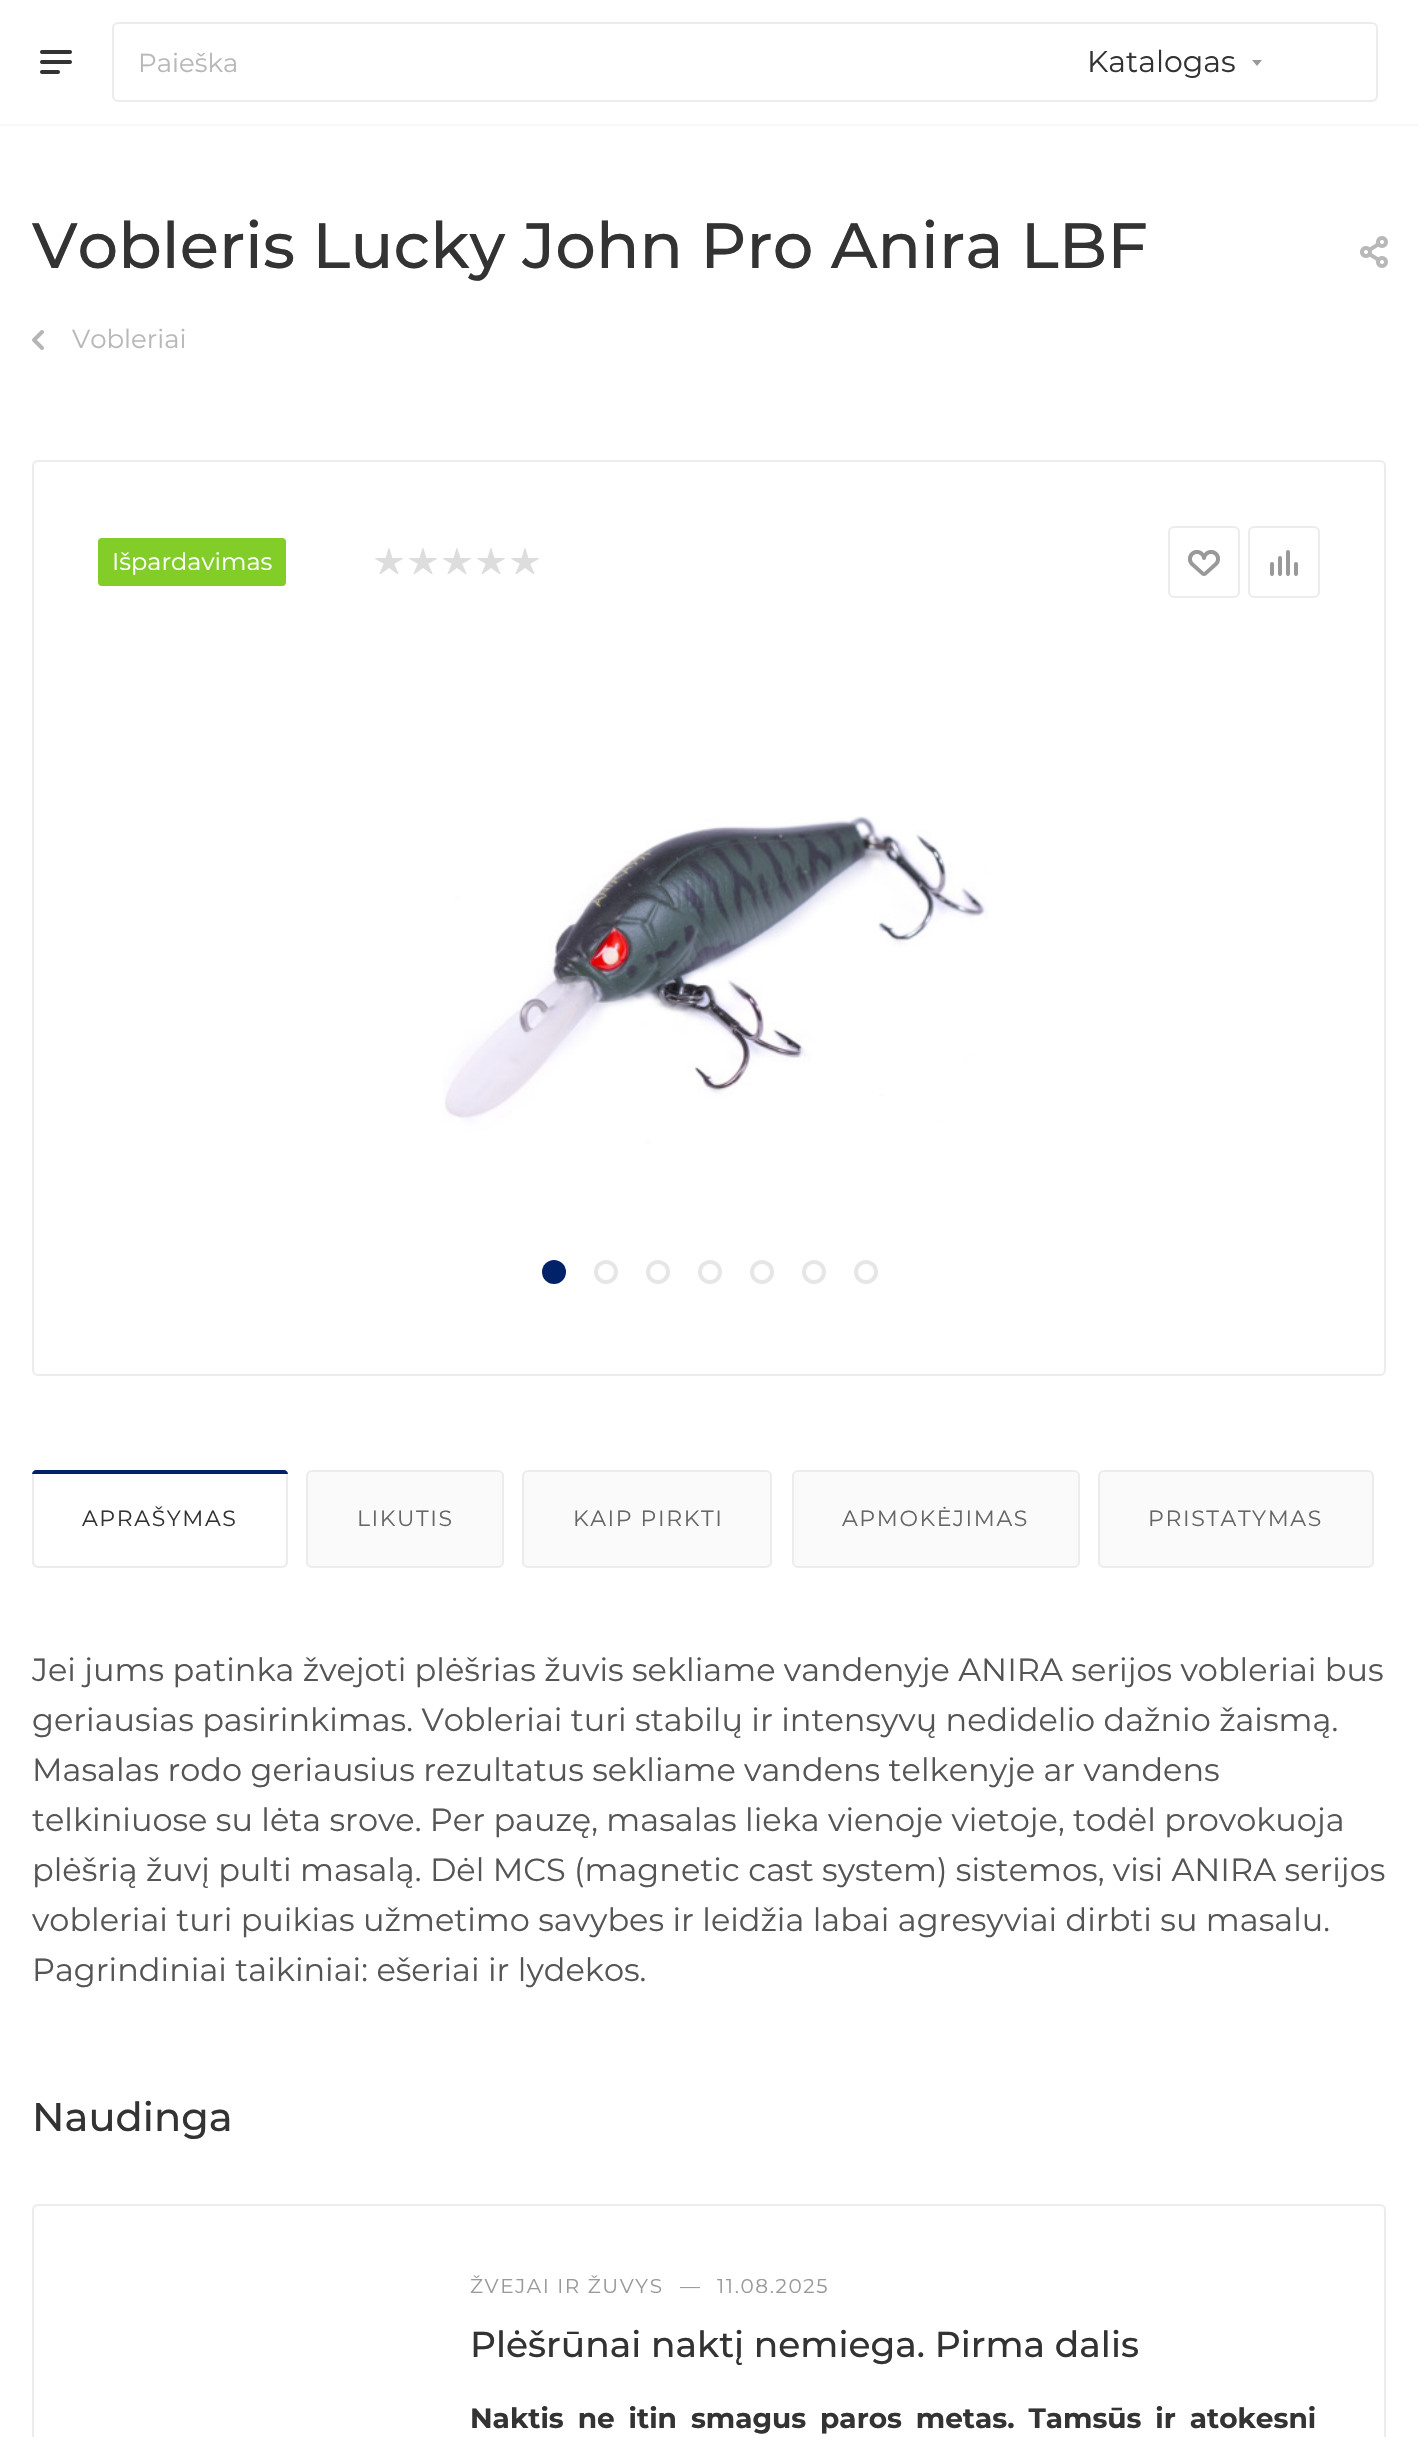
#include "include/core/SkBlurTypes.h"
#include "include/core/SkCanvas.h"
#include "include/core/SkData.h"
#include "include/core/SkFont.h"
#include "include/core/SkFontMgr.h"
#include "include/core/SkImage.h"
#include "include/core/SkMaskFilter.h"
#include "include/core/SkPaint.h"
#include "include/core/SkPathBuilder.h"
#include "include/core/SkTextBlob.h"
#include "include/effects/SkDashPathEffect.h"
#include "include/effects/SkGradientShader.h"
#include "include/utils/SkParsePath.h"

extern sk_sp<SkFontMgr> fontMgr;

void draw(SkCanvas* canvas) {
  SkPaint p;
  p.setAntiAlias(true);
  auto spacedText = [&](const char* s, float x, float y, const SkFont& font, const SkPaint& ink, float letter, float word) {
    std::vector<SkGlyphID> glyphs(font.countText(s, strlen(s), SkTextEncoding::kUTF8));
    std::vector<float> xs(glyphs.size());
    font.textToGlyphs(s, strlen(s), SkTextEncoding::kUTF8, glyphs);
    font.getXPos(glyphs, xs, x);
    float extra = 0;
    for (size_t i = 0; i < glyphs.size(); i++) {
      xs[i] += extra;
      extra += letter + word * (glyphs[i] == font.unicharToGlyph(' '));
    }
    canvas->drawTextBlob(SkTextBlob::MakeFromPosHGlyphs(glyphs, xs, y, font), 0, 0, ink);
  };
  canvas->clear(SK_ColorWHITE);
  p.setColor(SkColorSetRGB(248, 248, 248));
  canvas->drawRect(SkRect::MakeLTRB(0, 124, 1418, 126), p);
  canvas->drawImageRect(SkImages::DeferredFromEncodedData(SkData::MakeFromFileName("images/1.png")), SkRect::MakeLTRB(40, 50, 72, 74), SkSamplingOptions());
  p.setStyle(SkPaint::kStroke_Style);
  p.setStrokeWidth(2);
  p.setColor(SkColorSetRGB(236, 236, 236));
  canvas->drawRoundRect(SkRect::MakeLTRB(113, 23, 1377, 101), 5, 5, p);
  p.setStyle(SkPaint::kFill_Style);
  p.setColor(SkColorSetRGB(153, 153, 153));
  canvas->drawPath(SkPathBuilder(SkPathFillType::kEvenOdd).moveTo(1252, 60).lineTo(1262, 60).lineTo(1257, 66).close().detach(), p);
  canvas->drawImageRect(SkImages::DeferredFromEncodedData(SkData::MakeFromFileName("images/2.png")), SkRect::MakeLTRB(1360, 236, 1388, 268), SkSamplingOptions());
  canvas->drawImageRect(SkImages::DeferredFromEncodedData(SkData::MakeFromFileName("images/3.png")), SkRect::MakeLTRB(32, 330, 44, 350), SkSamplingOptions());
  p.setStyle(SkPaint::kStroke_Style);
  p.setColor(SkColorSetRGB(236, 236, 236));
  canvas->drawRoundRect(SkRect::MakeLTRB(33, 461, 1385, 1375), 5, 5, p);
  p.setStyle(SkPaint::kFill_Style);
  p.setColor(SkColorSetRGB(130, 205, 40));
  canvas->drawRoundRect(SkRect::MakeLTRB(98, 538, 286, 586), 4, 4, p);
  canvas->drawImageRect(SkImages::DeferredFromEncodedData(SkData::MakeFromFileName("images/4.png")), SkRect::MakeLTRB(375, 548, 403, 574), SkSamplingOptions());
  canvas->drawImageRect(SkImages::DeferredFromEncodedData(SkData::MakeFromFileName("images/4.png")), SkRect::MakeLTRB(409, 548, 437, 574), SkSamplingOptions());
  canvas->drawImageRect(SkImages::DeferredFromEncodedData(SkData::MakeFromFileName("images/4.png")), SkRect::MakeLTRB(443, 548, 471, 574), SkSamplingOptions());
  canvas->drawImageRect(SkImages::DeferredFromEncodedData(SkData::MakeFromFileName("images/4.png")), SkRect::MakeLTRB(477, 548, 505, 574), SkSamplingOptions());
  canvas->drawImageRect(SkImages::DeferredFromEncodedData(SkData::MakeFromFileName("images/4.png")), SkRect::MakeLTRB(511, 548, 539, 574), SkSamplingOptions());
  p.setStyle(SkPaint::kStroke_Style);
  p.setColor(SkColorSetRGB(236, 236, 236));
  canvas->drawRoundRect(SkRect::MakeLTRB(1169, 527, 1239, 597), 5, 5, p);
  canvas->drawImageRect(SkImages::DeferredFromEncodedData(SkData::MakeFromFileName("images/5.png")), SkRect::MakeLTRB(1188, 550, 1220, 576), SkSamplingOptions());
  canvas->drawRoundRect(SkRect::MakeLTRB(1249, 527, 1319, 597), 5, 5, p);
  canvas->drawImageRect(SkImages::DeferredFromEncodedData(SkData::MakeFromFileName("images/6.png")), SkRect::MakeLTRB(1270, 550, 1298, 576), SkSamplingOptions());
  canvas->drawImageRect(SkImages::DeferredFromEncodedData(SkData::MakeFromFileName("images/7.png")), SkRect::MakeLTRB(442, 816, 988, 1144), SkSamplingOptions());
  p.setStyle(SkPaint::kFill_Style);
  p.setColor(SkColorSetRGB(1, 33, 105));
  canvas->drawCircle(554, 1272, 12, p);
  p.setColor(SkColorSetRGB(230, 230, 230));
  canvas->drawCircle(606, 1272, 12, p);
  p.setColor(SK_ColorWHITE);
  canvas->drawCircle(606, 1272, 8, p);
  p.setColor(SkColorSetRGB(230, 230, 230));
  canvas->drawCircle(658, 1272, 12, p);
  p.setColor(SK_ColorWHITE);
  canvas->drawCircle(658, 1272, 8, p);
  p.setColor(SkColorSetRGB(230, 230, 230));
  canvas->drawCircle(710, 1272, 12, p);
  p.setColor(SK_ColorWHITE);
  canvas->drawCircle(710, 1272, 8, p);
  p.setColor(SkColorSetRGB(230, 230, 230));
  canvas->drawCircle(762, 1272, 12, p);
  p.setColor(SK_ColorWHITE);
  canvas->drawCircle(762, 1272, 8, p);
  p.setColor(SkColorSetRGB(230, 230, 230));
  canvas->drawCircle(814, 1272, 12, p);
  p.setColor(SK_ColorWHITE);
  canvas->drawCircle(814, 1272, 8, p);
  p.setColor(SkColorSetRGB(230, 230, 230));
  canvas->drawCircle(866, 1272, 12, p);
  p.setColor(SK_ColorWHITE);
  canvas->drawCircle(866, 1272, 8, p);
  p.setColor(SkColorSetRGB(250, 250, 250));
  canvas->drawRoundRect(SkRect::MakeLTRB(33, 1471, 287, 1567), 5, 5, p);
  p.setStyle(SkPaint::kStroke_Style);
  p.setColor(SkColorSetRGB(236, 236, 236));
  canvas->drawRoundRect(SkRect::MakeLTRB(33, 1471, 287, 1567), 5, 5, p);
  p.setStyle(SkPaint::kFill_Style);
  p.setColor(SK_ColorWHITE);
  canvas->drawRoundRect(SkRect::MakeLTRB(34, 1472, 286, 1566), 6, 6, p);
  p.setColor(SkColorSetRGB(1, 33, 105));
  canvas->drawPath(SkPathBuilder().moveTo(36, 1470).lineTo(284, 1470).cubicTo(286, 1470, 288, 1472, 288, 1474).lineTo(32, 1474).cubicTo(32, 1472, 34, 1470, 36, 1470).close().detach(), p);
  p.setColor(SkColorSetRGB(250, 250, 250));
  canvas->drawRoundRect(SkRect::MakeLTRB(307, 1471, 503, 1567), 5, 5, p);
  p.setStyle(SkPaint::kStroke_Style);
  p.setColor(SkColorSetRGB(236, 236, 236));
  canvas->drawRoundRect(SkRect::MakeLTRB(307, 1471, 503, 1567), 5, 5, p);
  p.setStyle(SkPaint::kFill_Style);
  p.setColor(SkColorSetRGB(250, 250, 250));
  canvas->drawRoundRect(SkRect::MakeLTRB(523, 1471, 771, 1567), 5, 5, p);
  p.setStyle(SkPaint::kStroke_Style);
  p.setColor(SkColorSetRGB(236, 236, 236));
  canvas->drawRoundRect(SkRect::MakeLTRB(523, 1471, 771, 1567), 5, 5, p);
  p.setStyle(SkPaint::kFill_Style);
  p.setColor(SkColorSetRGB(250, 250, 250));
  canvas->drawRoundRect(SkRect::MakeLTRB(793, 1471, 1079, 1567), 5, 5, p);
  p.setStyle(SkPaint::kStroke_Style);
  p.setColor(SkColorSetRGB(236, 236, 236));
  canvas->drawRoundRect(SkRect::MakeLTRB(793, 1471, 1079, 1567), 5, 5, p);
  p.setStyle(SkPaint::kFill_Style);
  p.setColor(SkColorSetRGB(250, 250, 250));
  canvas->drawRoundRect(SkRect::MakeLTRB(1099, 1471, 1373, 1567), 5, 5, p);
  p.setStyle(SkPaint::kStroke_Style);
  p.setColor(SkColorSetRGB(236, 236, 236));
  canvas->drawRoundRect(SkRect::MakeLTRB(1099, 1471, 1373, 1567), 5, 5, p);
  canvas->drawRoundRect(SkRect::MakeLTRB(33, 2205, 1385, 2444), 5, 5, p);
  SkFont font1(fontMgr->matchFamilyStyle("Montserrat", SkFontStyle::Normal()), 26);
  font1.setSubpixel(true);
  p.setStyle(SkPaint::kFill_Style);
  p.setColor(SkColorSetRGB(184, 184, 184));
  canvas->drawString("Paieška", 138, 72, font1, p);
  SkFont font2(fontMgr->matchFamilyStyle("Montserrat", SkFontStyle::Normal()), 30);
  font2.setSubpixel(true);
  p.setColor(SkColorSetRGB(51, 51, 51));
  canvas->drawString("Katalogas", 1087, 72, font2, p);
  SkFont font3(fontMgr->matchFamilyStyle("Montserrat", SkFontStyle(500, SkFontStyle::kNormal_Width, SkFontStyle::kUpright_Slant)), 64);
  font3.setSubpixel(true);
  canvas->drawString("Vobleris Lucky John Pro Anira LBF", 32, 268, font3, p);
  p.setColor(SkColorSetRGB(184, 184, 184));
  canvas->drawString("Vobleriai", 72, 348, font1, p);
  SkFont font4(fontMgr->matchFamilyStyle("Montserrat", SkFontStyle::Normal()), 24);
  font4.setSubpixel(true);
  p.setColor(SK_ColorWHITE);
  canvas->drawString("Išpardavimas", 112, 570, font4, p);
  SkFont font5(fontMgr->matchFamilyStyle("Montserrat", SkFontStyle::Normal()), 22);
  font5.setSubpixel(true);
  p.setColor(SkColorSetRGB(51, 51, 51));
  spacedText("APRAŠYMAS", 82, 1526, font5, p, 1.6f, 0);
  p.setColor(SkColorSetRGB(102, 102, 102));
  spacedText("LIKUTIS", 357, 1526, font5, p, 1.6f, 0);
  spacedText("KAIP PIRKTI", 573, 1526, font5, p, 1.6f, 0);
  spacedText("APMOKĖJIMAS", 842, 1526, font5, p, 1.6f, 0);
  spacedText("PRISTATYMAS", 1148, 1526, font5, p, 1.6f, 0);
  SkFont font6(fontMgr->matchFamilyStyle("Montserrat", SkFontStyle::Normal()), 32);
  font6.setSubpixel(true);
  p.setColor(SkColorSetRGB(85, 85, 85));
  canvas->drawString("Jei jums patinka žvejoti plėšrias žuvis sekliame vandenyje ANIRA serijos vobleriai bus", 32, 1681, font6, p);
  canvas->drawString("geriausias pasirinkimas. Vobleriai turi stabilų ir intensyvų nedidelio dažnio žaismą.", 32, 1731, font6, p);
  canvas->drawString("Masalas rodo geriausius rezultatus sekliame vandens telkenyje ar vandens", 32, 1781, font6, p);
  canvas->drawString("telkiniuose su lėta srove. Per pauzę, masalas lieka vienoje vietoje, todėl provokuoja", 32, 1831, font6, p);
  canvas->drawString("plėšrią žuvį pulti masalą. Dėl MCS (magnetic cast system) sistemos, visi ANIRA serijos", 32, 1881, font6, p);
  canvas->drawString("vobleriai turi puikias užmetimo savybes ir leidžia labai agresyviai dirbti su masalu.", 32, 1931, font6, p);
  canvas->drawString("Pagrindiniai taikiniai: ešeriai ir lydekos.", 32, 1981, font6, p);
  SkFont font7(fontMgr->matchFamilyStyle("Montserrat", SkFontStyle(500, SkFontStyle::kNormal_Width, SkFontStyle::kUpright_Slant)), 40);
  font7.setSubpixel(true);
  p.setColor(SkColorSetRGB(51, 51, 51));
  canvas->drawString("Naudinga", 32, 2131, font7, p);
  SkFont font8(fontMgr->matchFamilyStyle("Montserrat", SkFontStyle::Normal()), 20);
  font8.setSubpixel(true);
  p.setColor(SkColorSetRGB(153, 153, 153));
  spacedText("ŽVEJAI IR ŽUVYS", 470, 2293, font8, p, 1.6f, 0);
  spacedText("—", 680, 2293, font8, p, 1.6f, 0);
  spacedText("11.08.2025", 717, 2293, font8, p, 1.6f, 0);
  SkFont font9(fontMgr->matchFamilyStyle("Montserrat", SkFontStyle(500, SkFontStyle::kNormal_Width, SkFontStyle::kUpright_Slant)), 36);
  font9.setSubpixel(true);
  p.setColor(SkColorSetRGB(51, 51, 51));
  canvas->drawString("Plėšrūnai naktį nemiega. Pirma dalis", 470, 2357, font9, p);
  SkFont font10(fontMgr->matchFamilyStyle("Montserrat", SkFontStyle::Bold()), 28);
  font10.setSubpixel(true);
  spacedText("Naktis ne itin smagus paros metas. Tamsūs ir atokesni", 470, 2428, font10, p, 0, 6);
}
